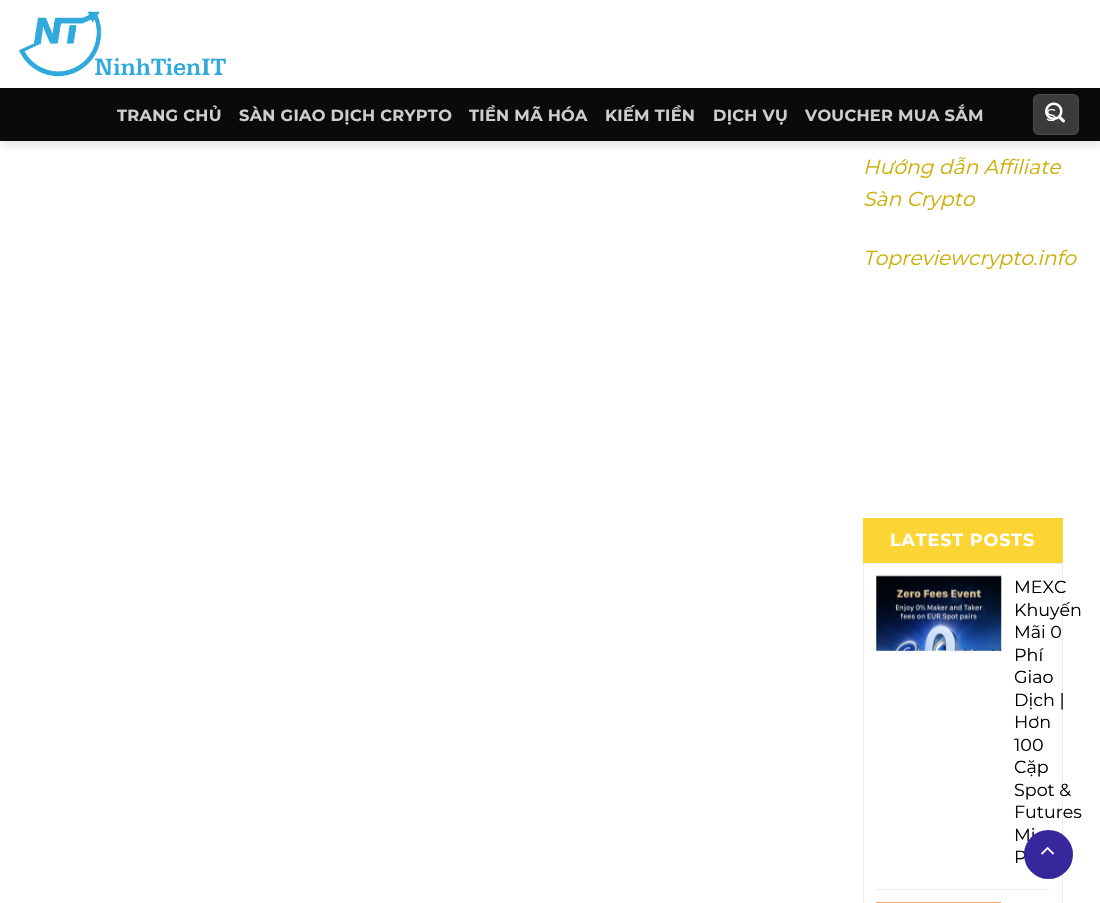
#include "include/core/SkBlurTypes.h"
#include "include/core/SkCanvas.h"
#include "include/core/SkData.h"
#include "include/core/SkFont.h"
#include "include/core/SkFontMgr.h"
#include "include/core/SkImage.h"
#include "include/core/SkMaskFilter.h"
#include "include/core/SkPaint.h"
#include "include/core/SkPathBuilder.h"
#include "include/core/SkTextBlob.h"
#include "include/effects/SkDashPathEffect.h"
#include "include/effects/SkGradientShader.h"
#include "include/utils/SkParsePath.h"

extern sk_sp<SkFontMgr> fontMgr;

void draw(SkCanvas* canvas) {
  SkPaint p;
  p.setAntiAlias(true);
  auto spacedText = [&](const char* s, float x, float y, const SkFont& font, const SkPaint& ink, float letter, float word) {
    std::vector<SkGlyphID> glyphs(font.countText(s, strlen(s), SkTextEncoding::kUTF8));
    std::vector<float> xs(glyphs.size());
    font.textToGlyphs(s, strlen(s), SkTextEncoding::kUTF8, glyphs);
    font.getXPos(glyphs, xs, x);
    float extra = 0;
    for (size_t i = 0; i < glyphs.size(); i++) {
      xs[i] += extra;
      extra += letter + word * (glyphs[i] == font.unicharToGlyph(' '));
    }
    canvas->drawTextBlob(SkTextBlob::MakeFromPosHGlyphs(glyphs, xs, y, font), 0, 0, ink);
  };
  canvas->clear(SK_ColorWHITE);
  canvas->save();
  canvas->clipRect(SkRect::MakeLTRB(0, 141, 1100, 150));
  p.setColor(SkColorSetARGB(38, 0, 0, 0));
  p.setMaskFilter(SkMaskFilter::MakeBlur(kNormal_SkBlurStyle, 6));
  canvas->drawRect(SkRect::MakeLTRB(1, 1, 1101, 143), p);
  p.setMaskFilter(nullptr);
  canvas->restore();
  canvas->drawImageRect(SkImages::DeferredFromEncodedData(SkData::MakeFromFileName("images/1.png")), SkRect::MakeLTRB(18, 11, 226, 77), SkSamplingOptions());
  p.setColor(SkColorSetRGB(10, 10, 10));
  canvas->drawRect(SkRect::MakeLTRB(0, 88, 1100, 141), p);
  p.setColor(SkColorSetRGB(59, 59, 59));
  canvas->drawRoundRect(SkRect::MakeLTRB(1033, 94, 1079, 135), 6, 6, p);
  p.setStyle(SkPaint::kStroke_Style);
  p.setStrokeWidth(1);
  p.setColor(SkColorSetARGB(23, 255, 255, 255));
  canvas->drawRoundRect(SkRect::MakeLTRB(1033.5f, 94.5f, 1078.5f, 134.5f), 5.5f, 5.5f, p);
  p.setStyle(SkPaint::kFill_Style);
  p.setColor(SkColorSetRGB(252, 213, 53));
  canvas->drawRect(SkRect::MakeLTRB(863, 518, 1063, 563), p);
  p.setStyle(SkPaint::kStroke_Style);
  p.setColor(SkColorSetRGB(238, 238, 238));
  canvas->drawRect(SkRect::MakeLTRB(863.5f, 563.5f, 1062.5f, 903.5f), p);
  canvas->drawImageRect(SkImages::DeferredFromEncodedData(SkData::MakeFromFileName("images/3.png")), SkRect::MakeLTRB(876, 575, 1002, 651), SkSamplingOptions());
  p.setStyle(SkPaint::kFill_Style);
  p.setColor(SkColorSetRGB(236, 236, 236));
  canvas->drawRect(SkRect::MakeLTRB(876, 889, 1049, 890), p);
  p.setColor(SkColorSetRGB(253, 166, 89));
  canvas->drawRect(SkRect::MakeLTRB(876, 902, 1001, 903), p);
  SkFont font1(fontMgr->matchFamilyStyle("Montserrat", SkFontStyle::Bold()), 16.2f);
  font1.setSubpixel(true);
  p.setColor(SkColorSetRGB(206, 206, 206));
  spacedText("TRANG CHỦ", 117, 121, font1, p, 0.3f, 0);
  spacedText("SÀN GIAO DỊCH CRYPTO", 239, 121, font1, p, 0.3f, 0);
  spacedText("TIỀN MÃ HÓA", 469, 121, font1, p, 0.3f, 0);
  spacedText("KIẾM TIỀN", 605, 121, font1, p, 0.3f, 0);
  spacedText("DỊCH VỤ", 713, 121, font1, p, 0.3f, 0);
  spacedText("VOUCHER MUA SẮM", 805, 121, font1, p, 0.3f, 0);
  SkFont font2(fontMgr->matchFamilyStyle("Montserrat", SkFontStyle::Normal()), 17);
  font2.setSubpixel(true);
  p.setColor(SK_ColorWHITE);
  canvas->drawString("S", 1046, 121, font2, p);
  canvas->drawImageRect(SkImages::DeferredFromEncodedData(SkData::MakeFromFileName("images/2.png")), SkRect::MakeLTRB(1045, 102, 1065, 123), SkSamplingOptions());
  SkFont font3(fontMgr->matchFamilyStyle("Montserrat", SkFontStyle::Italic()), 20.25f);
  font3.setSubpixel(true);
  p.setColor(SkColorSetRGB(204, 174, 4));
  canvas->drawString("Hướng dẫn Affiliate", 863, 174, font3, p);
  canvas->drawString("Sàn Crypto", 863, 206, font3, p);
  canvas->drawString("Topreviewcrypto.info", 863, 265, font3, p);
  SkFont font4(fontMgr->matchFamilyStyle("Montserrat", SkFontStyle::Bold()), 17.5f);
  font4.setSubpixel(true);
  p.setColor(SK_ColorWHITE);
  spacedText("LATEST POSTS", 890, 546, font4, p, 0.9f, 0);
  SkFont font5(fontMgr->matchFamilyStyle("Montserrat", SkFontStyle::Normal()), 17.5f);
  font5.setSubpixel(true);
  p.setColor(SK_ColorBLACK);
  canvas->drawString("MEXC", 1014, 593, font5, p);
  canvas->drawString("Khuyến", 1014, 616, font5, p);
  canvas->drawString("Mãi 0", 1014, 638, font5, p);
  canvas->drawString("Phí", 1014, 661, font5, p);
  canvas->drawString("Giao", 1014, 683, font5, p);
  canvas->drawString("Dịch |", 1014, 706, font5, p);
  canvas->drawString("Hơn", 1014, 728, font5, p);
  canvas->drawString("100", 1014, 751, font5, p);
  canvas->drawString("Cặp", 1014, 773, font5, p);
  canvas->drawString("Spot &", 1014, 796, font5, p);
  canvas->drawString("Futures", 1014, 818, font5, p);
  canvas->drawString("Mi", 1014, 841, font5, p);
  canvas->drawString("P", 1014, 863, font5, p);
  p.setColor(SkColorSetRGB(54, 39, 156));
  canvas->drawCircle(1048.5f, 854.5f, 24.5f, p);
  canvas->drawImageRect(SkImages::DeferredFromEncodedData(SkData::MakeFromFileName("images/4.png")), SkRect::MakeLTRB(1041, 847, 1055, 855), SkSamplingOptions());
}
